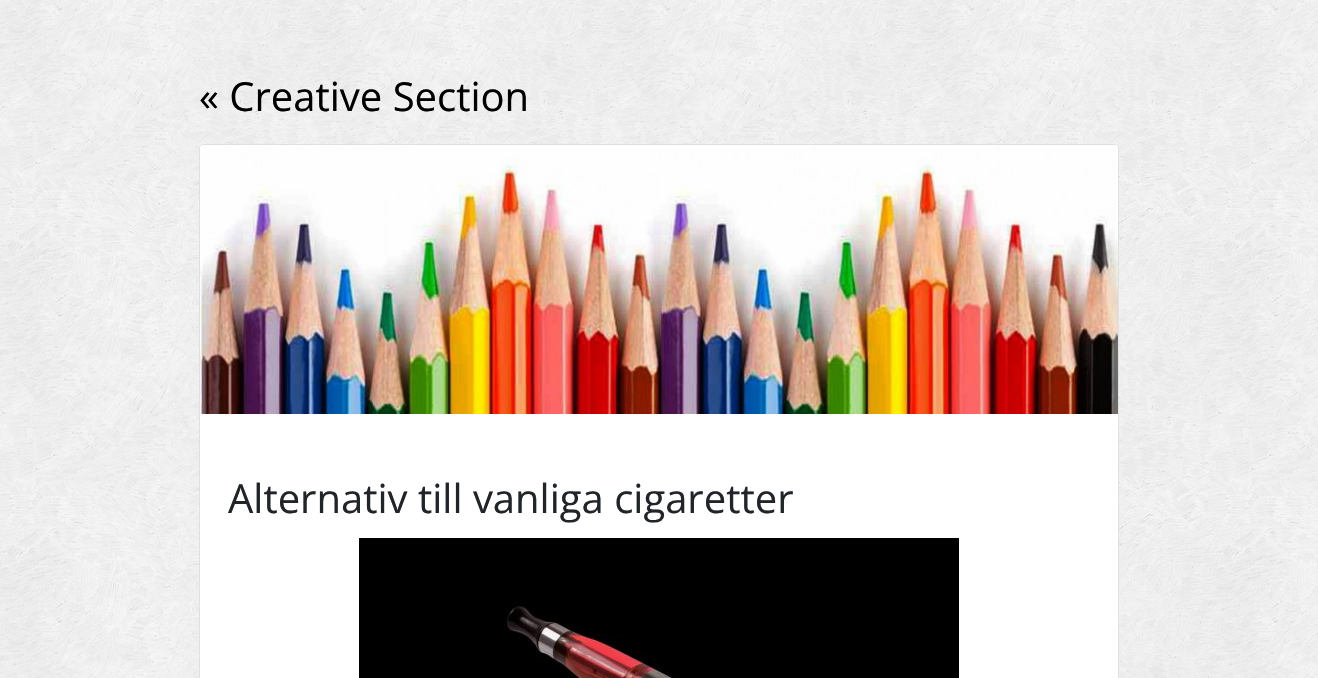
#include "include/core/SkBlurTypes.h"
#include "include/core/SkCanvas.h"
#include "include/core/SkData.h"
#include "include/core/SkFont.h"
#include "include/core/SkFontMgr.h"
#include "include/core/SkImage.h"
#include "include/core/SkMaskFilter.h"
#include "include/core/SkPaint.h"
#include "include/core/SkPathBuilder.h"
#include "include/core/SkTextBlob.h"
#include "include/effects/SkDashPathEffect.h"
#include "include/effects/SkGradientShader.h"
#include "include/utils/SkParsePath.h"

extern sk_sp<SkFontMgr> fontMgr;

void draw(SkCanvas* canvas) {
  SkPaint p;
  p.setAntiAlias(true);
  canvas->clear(SK_ColorWHITE);
  canvas->drawImageRect(SkImages::DeferredFromEncodedData(SkData::MakeFromFileName("images/1.png")), SkRect::MakeLTRB(0, 0, 1318, 678), SkSamplingOptions());
  p.setColor(SK_ColorWHITE);
  canvas->drawRoundRect(SkRect::MakeLTRB(199, 144, 1119, 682), 4, 4, p);
  p.setStyle(SkPaint::kStroke_Style);
  p.setStrokeWidth(1);
  p.setColor(SkColorSetARGB(31, 0, 0, 0));
  canvas->drawRoundRect(SkRect::MakeLTRB(199.5f, 144.5f, 1118.5f, 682.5f), 3.5f, 3.5f, p);
  canvas->drawImageRect(SkImages::DeferredFromEncodedData(SkData::MakeFromFileName("images/2.png")), SkRect::MakeLTRB(200, 145, 1118, 414), SkSamplingOptions());
  canvas->drawImageRect(SkImages::DeferredFromEncodedData(SkData::MakeFromFileName("images/3.png")), SkRect::MakeLTRB(359, 538, 959, 678), SkSamplingOptions());
  SkFont font1(fontMgr->matchFamilyStyle("Open Sans", SkFontStyle::Normal()), 40);
  font1.setSubpixel(true);
  p.setStyle(SkPaint::kFill_Style);
  p.setColor(SK_ColorBLACK);
  canvas->drawString("« Creative Section", 199, 111, font1, p);
  p.setColor(SkColorSetRGB(33, 37, 41));
  canvas->drawString("Alternativ till vanliga cigaretter", 228, 513, font1, p);
}
